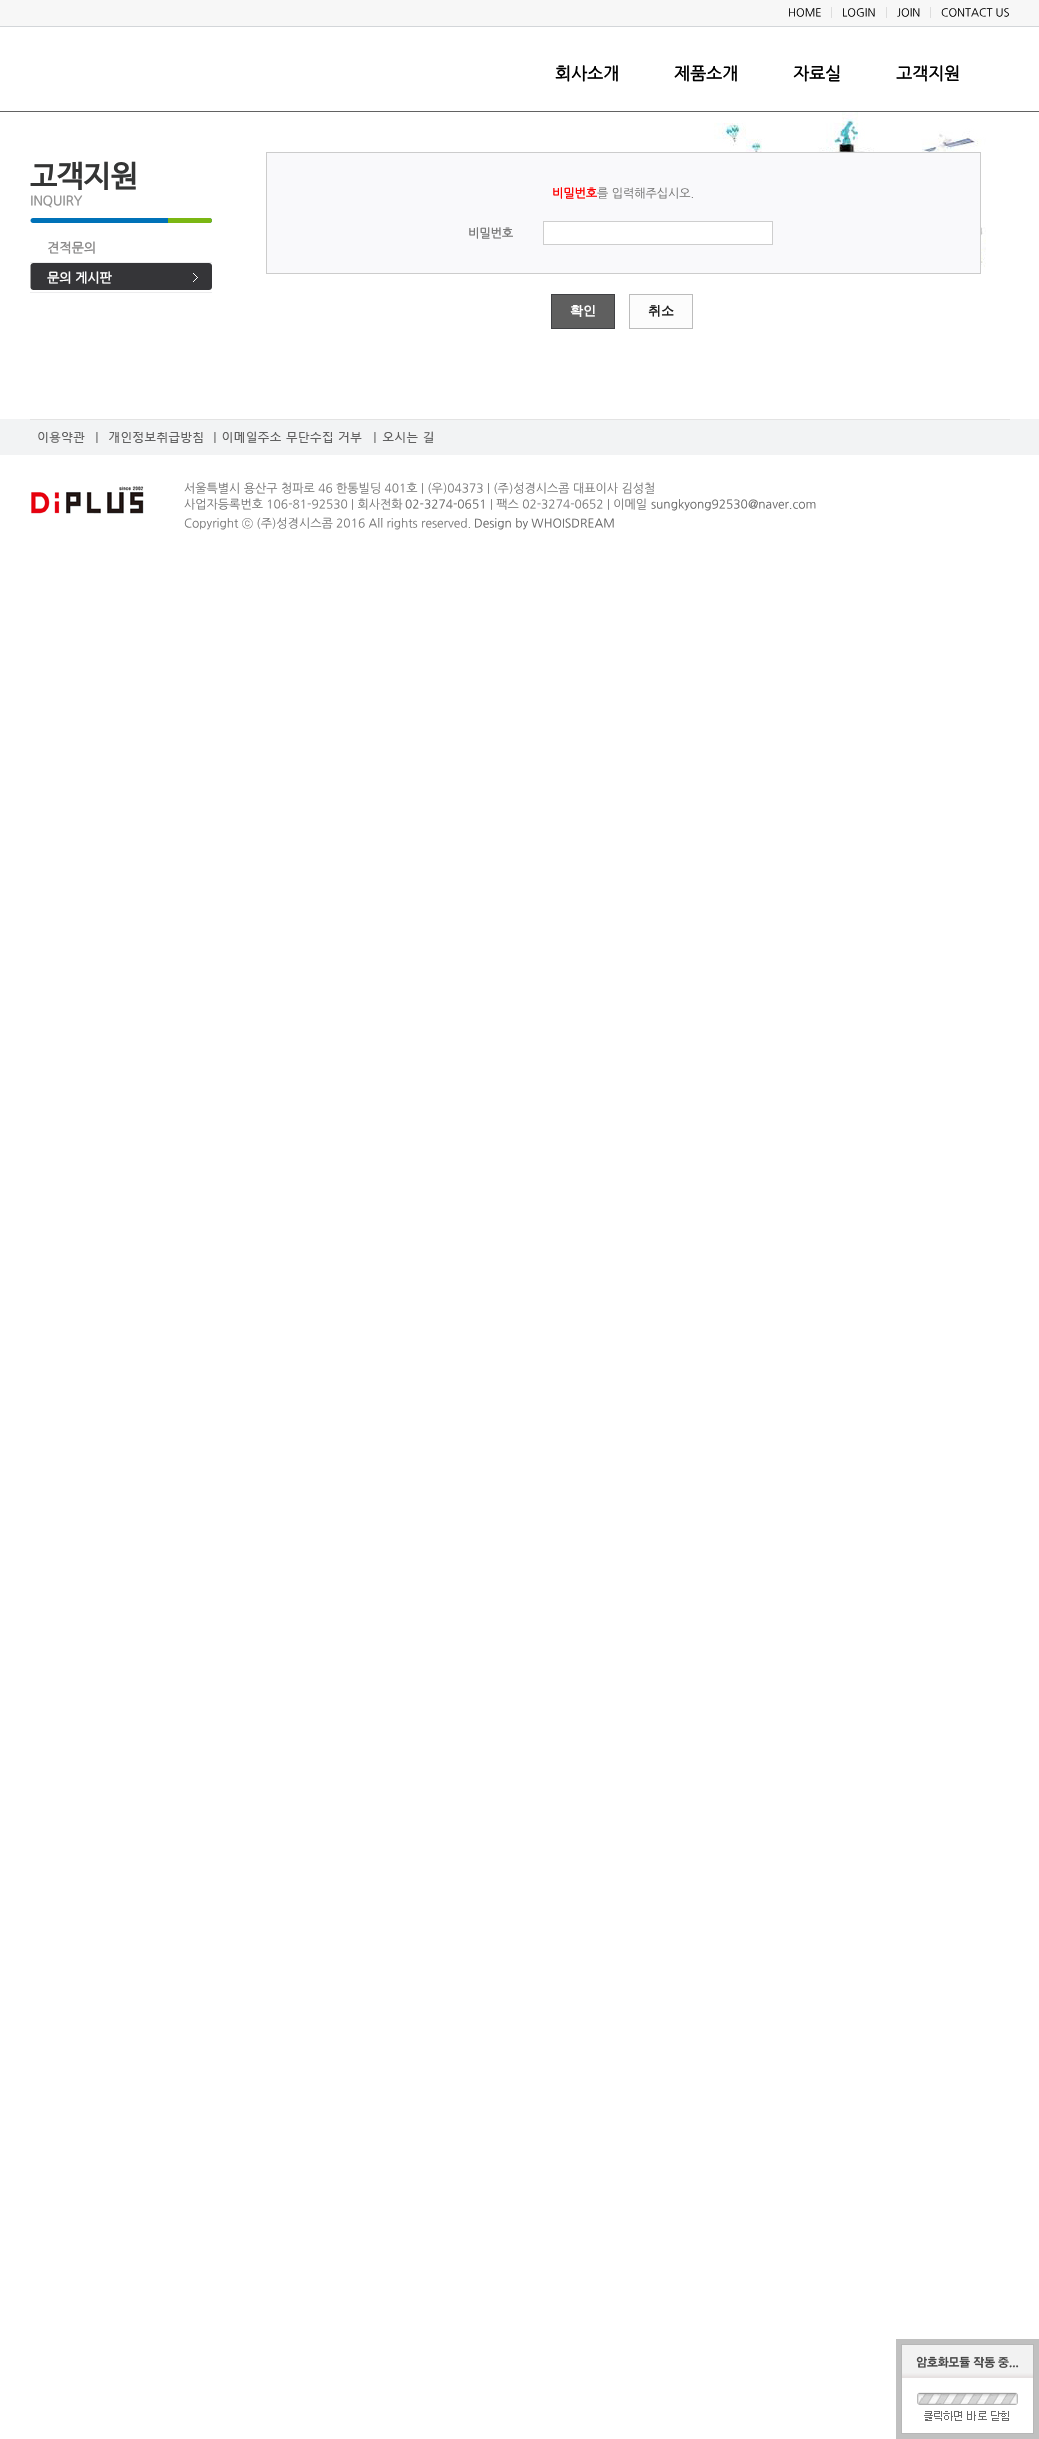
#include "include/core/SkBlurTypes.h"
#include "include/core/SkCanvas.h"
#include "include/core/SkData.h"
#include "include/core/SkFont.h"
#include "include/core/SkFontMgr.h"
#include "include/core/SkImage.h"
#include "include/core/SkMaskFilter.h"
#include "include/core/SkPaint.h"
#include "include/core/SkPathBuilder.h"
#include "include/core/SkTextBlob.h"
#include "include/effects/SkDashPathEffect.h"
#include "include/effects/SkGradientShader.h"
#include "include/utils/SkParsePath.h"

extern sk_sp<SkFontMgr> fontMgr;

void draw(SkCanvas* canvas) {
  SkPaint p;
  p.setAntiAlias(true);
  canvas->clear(SK_ColorWHITE);
  canvas->drawImageRect(SkImages::DeferredFromEncodedData(SkData::MakeFromFileName("images/1.png")), SkRect::MakeLTRB(0, 0, 1039, 112), SkSamplingOptions());
  p.setColor(SkColorSetRGB(221, 221, 221));
  canvas->drawRect(SkRect::MakeLTRB(831, 7, 832, 18), p);
  canvas->drawRect(SkRect::MakeLTRB(886, 7, 887, 18), p);
  canvas->drawRect(SkRect::MakeLTRB(930, 7, 931, 18), p);
  canvas->drawImageRect(SkImages::DeferredFromEncodedData(SkData::MakeFromFileName("images/2.png")), SkRect::MakeLTRB(714, 112, 986, 272), SkSamplingOptions());
  canvas->drawImageRect(SkImages::DeferredFromEncodedData(SkData::MakeFromFileName("images/3.png")), SkRect::MakeLTRB(30, 218, 212, 223), SkSamplingOptions());
  p.setColor(SkColorSetRGB(237, 237, 238));
  canvas->drawRect(SkRect::MakeLTRB(30, 262, 212, 263), p);
  canvas->drawRect(SkRect::MakeLTRB(30, 292, 212, 293), p);
  canvas->drawImageRect(SkImages::DeferredFromEncodedData(SkData::MakeFromFileName("images/4.png")), SkRect::MakeLTRB(30, 263, 212, 290), SkSamplingOptions());
  p.setColor(SkColorSetRGB(249, 249, 251));
  canvas->drawRect(SkRect::MakeLTRB(266.5f, 152.5f, 980.5f, 273.5f), p);
  p.setStyle(SkPaint::kStroke_Style);
  p.setStrokeWidth(1);
  p.setColor(SkColorSetRGB(204, 204, 204));
  canvas->drawRect(SkRect::MakeLTRB(266.5f, 152.5f, 980.5f, 273.5f), p);
  p.setStyle(SkPaint::kFill_Style);
  p.setColor(SK_ColorWHITE);
  canvas->drawRect(SkRect::MakeLTRB(543.5f, 221.5f, 772.5f, 244.5f), p);
  p.setStyle(SkPaint::kStroke_Style);
  p.setColor(SkColorSetRGB(206, 206, 206));
  canvas->drawRect(SkRect::MakeLTRB(543.5f, 221.5f, 772.5f, 244.5f), p);
  p.setStyle(SkPaint::kFill_Style);
  p.setColor(SkColorSetRGB(95, 95, 95));
  canvas->drawRect(SkRect::MakeLTRB(551.5f, 294.5f, 614.5f, 328.5f), p);
  p.setStyle(SkPaint::kStroke_Style);
  p.setColor(SkColorSetRGB(64, 65, 68));
  canvas->drawRect(SkRect::MakeLTRB(551.5f, 294.5f, 614.5f, 328.5f), p);
  p.setStyle(SkPaint::kFill_Style);
  p.setColor(SkColorSetRGB(252, 252, 252));
  canvas->drawRect(SkRect::MakeLTRB(629.5f, 294.5f, 692.5f, 328.5f), p);
  p.setStyle(SkPaint::kStroke_Style);
  p.setColor(SkColorSetRGB(188, 188, 188));
  canvas->drawRect(SkRect::MakeLTRB(629.5f, 294.5f, 692.5f, 328.5f), p);
  p.setStyle(SkPaint::kFill_Style);
  p.setColor(SkColorSetRGB(242, 243, 244));
  canvas->drawRect(SkRect::MakeLTRB(0, 419, 1039, 455), p);
  p.setColor(SkColorSetRGB(227, 227, 227));
  canvas->drawRect(SkRect::MakeLTRB(30, 419, 1010, 420), p);
  canvas->drawImageRect(SkImages::DeferredFromEncodedData(SkData::MakeFromFileName("images/5.png")), SkRect::MakeLTRB(38, 431, 85, 443), SkSamplingOptions());
  canvas->drawImageRect(SkImages::DeferredFromEncodedData(SkData::MakeFromFileName("images/6.png")), SkRect::MakeLTRB(96, 432, 98, 443), SkSamplingOptions());
  canvas->drawImageRect(SkImages::DeferredFromEncodedData(SkData::MakeFromFileName("images/7.png")), SkRect::MakeLTRB(109, 432, 203, 443), SkSamplingOptions());
  canvas->drawImageRect(SkImages::DeferredFromEncodedData(SkData::MakeFromFileName("images/6.png")), SkRect::MakeLTRB(214, 432, 216, 443), SkSamplingOptions());
  canvas->drawImageRect(SkImages::DeferredFromEncodedData(SkData::MakeFromFileName("images/8.png")), SkRect::MakeLTRB(222, 431, 362, 443), SkSamplingOptions());
  canvas->drawImageRect(SkImages::DeferredFromEncodedData(SkData::MakeFromFileName("images/6.png")), SkRect::MakeLTRB(374, 432, 376, 443), SkSamplingOptions());
  canvas->drawImageRect(SkImages::DeferredFromEncodedData(SkData::MakeFromFileName("images/9.png")), SkRect::MakeLTRB(382, 431, 433, 443), SkSamplingOptions());
  canvas->drawImageRect(SkImages::DeferredFromEncodedData(SkData::MakeFromFileName("images/10.png")), SkRect::MakeLTRB(31, 486, 144, 514), SkSamplingOptions());
  p.setColor(SkColorSetRGB(192, 192, 192));
  canvas->drawRect(SkRect::MakeLTRB(896, 2339, 1039, 2439), p);
  canvas->drawImageRect(SkImages::DeferredFromEncodedData(SkData::MakeFromFileName("images/11.png")), SkRect::MakeLTRB(901, 2344, 1034, 2434), SkSamplingOptions());
  SkFont font1(fontMgr->matchFamilyStyle("NanumGothic", SkFontStyle::Normal()), 11);
  font1.setSubpixel(true);
  p.setColor(SK_ColorBLACK);
  canvas->drawString("HOME", 788, 16, font1, p);
  canvas->drawString("LOGIN", 842, 16, font1, p);
  canvas->drawString("JOIN", 897, 16, font1, p);
  canvas->drawString("CONTACT US", 941, 16, font1, p);
  SkFont font2(fontMgr->matchFamilyStyle("NanumGothic", SkFontStyle::Bold()), 17);
  font2.setSubpixel(true);
  canvas->drawString("회사소개", 555, 79, font2, p);
  canvas->drawString("제품소개", 674, 79, font2, p);
  canvas->drawString("자료실", 793, 79, font2, p);
  canvas->drawString("고객지원", 896, 79, font2, p);
  SkFont font3(fontMgr->matchFamilyStyle("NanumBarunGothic", SkFontStyle::Bold()), 30);
  font3.setSubpixel(true);
  p.setColor(SkColorSetRGB(52, 53, 53));
  canvas->drawString("고객지원", 30, 186, font3, p);
  SkFont font4(fontMgr->matchFamilyStyle("NanumGothic", SkFontStyle::Bold()), 13);
  font4.setSubpixel(true);
  p.setColor(SkColorSetRGB(148, 148, 148));
  canvas->drawString("INQUIRY", 30, 205, font4, p);
  p.setColor(SkColorSetRGB(137, 136, 136));
  canvas->drawString("견적문의", 47, 252, font4, p);
  p.setColor(SK_ColorWHITE);
  canvas->drawString("문의 게시판", 47, 282, font4, p);
  SkFont font5(fontMgr->matchFamilyStyle("NanumGothic", SkFontStyle::Bold()), 12);
  font5.setSubpixel(true);
  p.setColor(SkColorSetRGB(255, 0, 0));
  canvas->drawString("비밀번호", 552, 197, font5, p);
  SkFont font6(fontMgr->matchFamilyStyle("NanumGothic", SkFontStyle::Normal()), 12);
  font6.setSubpixel(true);
  p.setColor(SkColorSetRGB(121, 121, 121));
  canvas->drawString("를 입력해주십시오.", 597, 197, font6, p);
  canvas->drawString("비밀번호", 468, 237, font5, p);
  SkFont font7(fontMgr->matchFamilyStyle("WenQuanYi Zen Hei", SkFontStyle::Bold()), 13);
  font7.setSubpixel(true);
  p.setColor(SK_ColorWHITE);
  canvas->drawString("확인", 570, 315, font7, p);
  p.setColor(SkColorSetRGB(31, 31, 31));
  canvas->drawString("취소", 648, 315, font7, p);
  p.setColor(SkColorSetRGB(121, 121, 121));
  canvas->drawString("서울특별시 용산구 청파로 46 한통빌딩 401호 | (우)04373 | (주)성경시스콤 대표이사 김성철", 184, 492, font6, p);
  canvas->drawString("사업자등록번호 106-81-92530 | 회사전화", 184, 508, font6, p);
  p.setColor(SkColorSetRGB(102, 102, 102));
  canvas->drawString("02-3274-0651", 405, 508, font6, p);
  p.setColor(SkColorSetRGB(121, 121, 121));
  canvas->drawString("| 팩스 02-3274-0652 | 이메일", 490, 508, font6, p);
  p.setColor(SkColorSetRGB(102, 102, 102));
  canvas->drawString("sungkyong92530@naver.com", 651, 508, font6, p);
  p.setColor(SkColorSetRGB(121, 121, 121));
  canvas->drawString("Copyright ⓒ (주)성경시스콤 2016 All rights reserved.", 184, 527, font6, p);
  p.setColor(SkColorSetRGB(102, 102, 102));
  canvas->drawString("Design by WHOISDREAM", 474, 527, font6, p);
}
